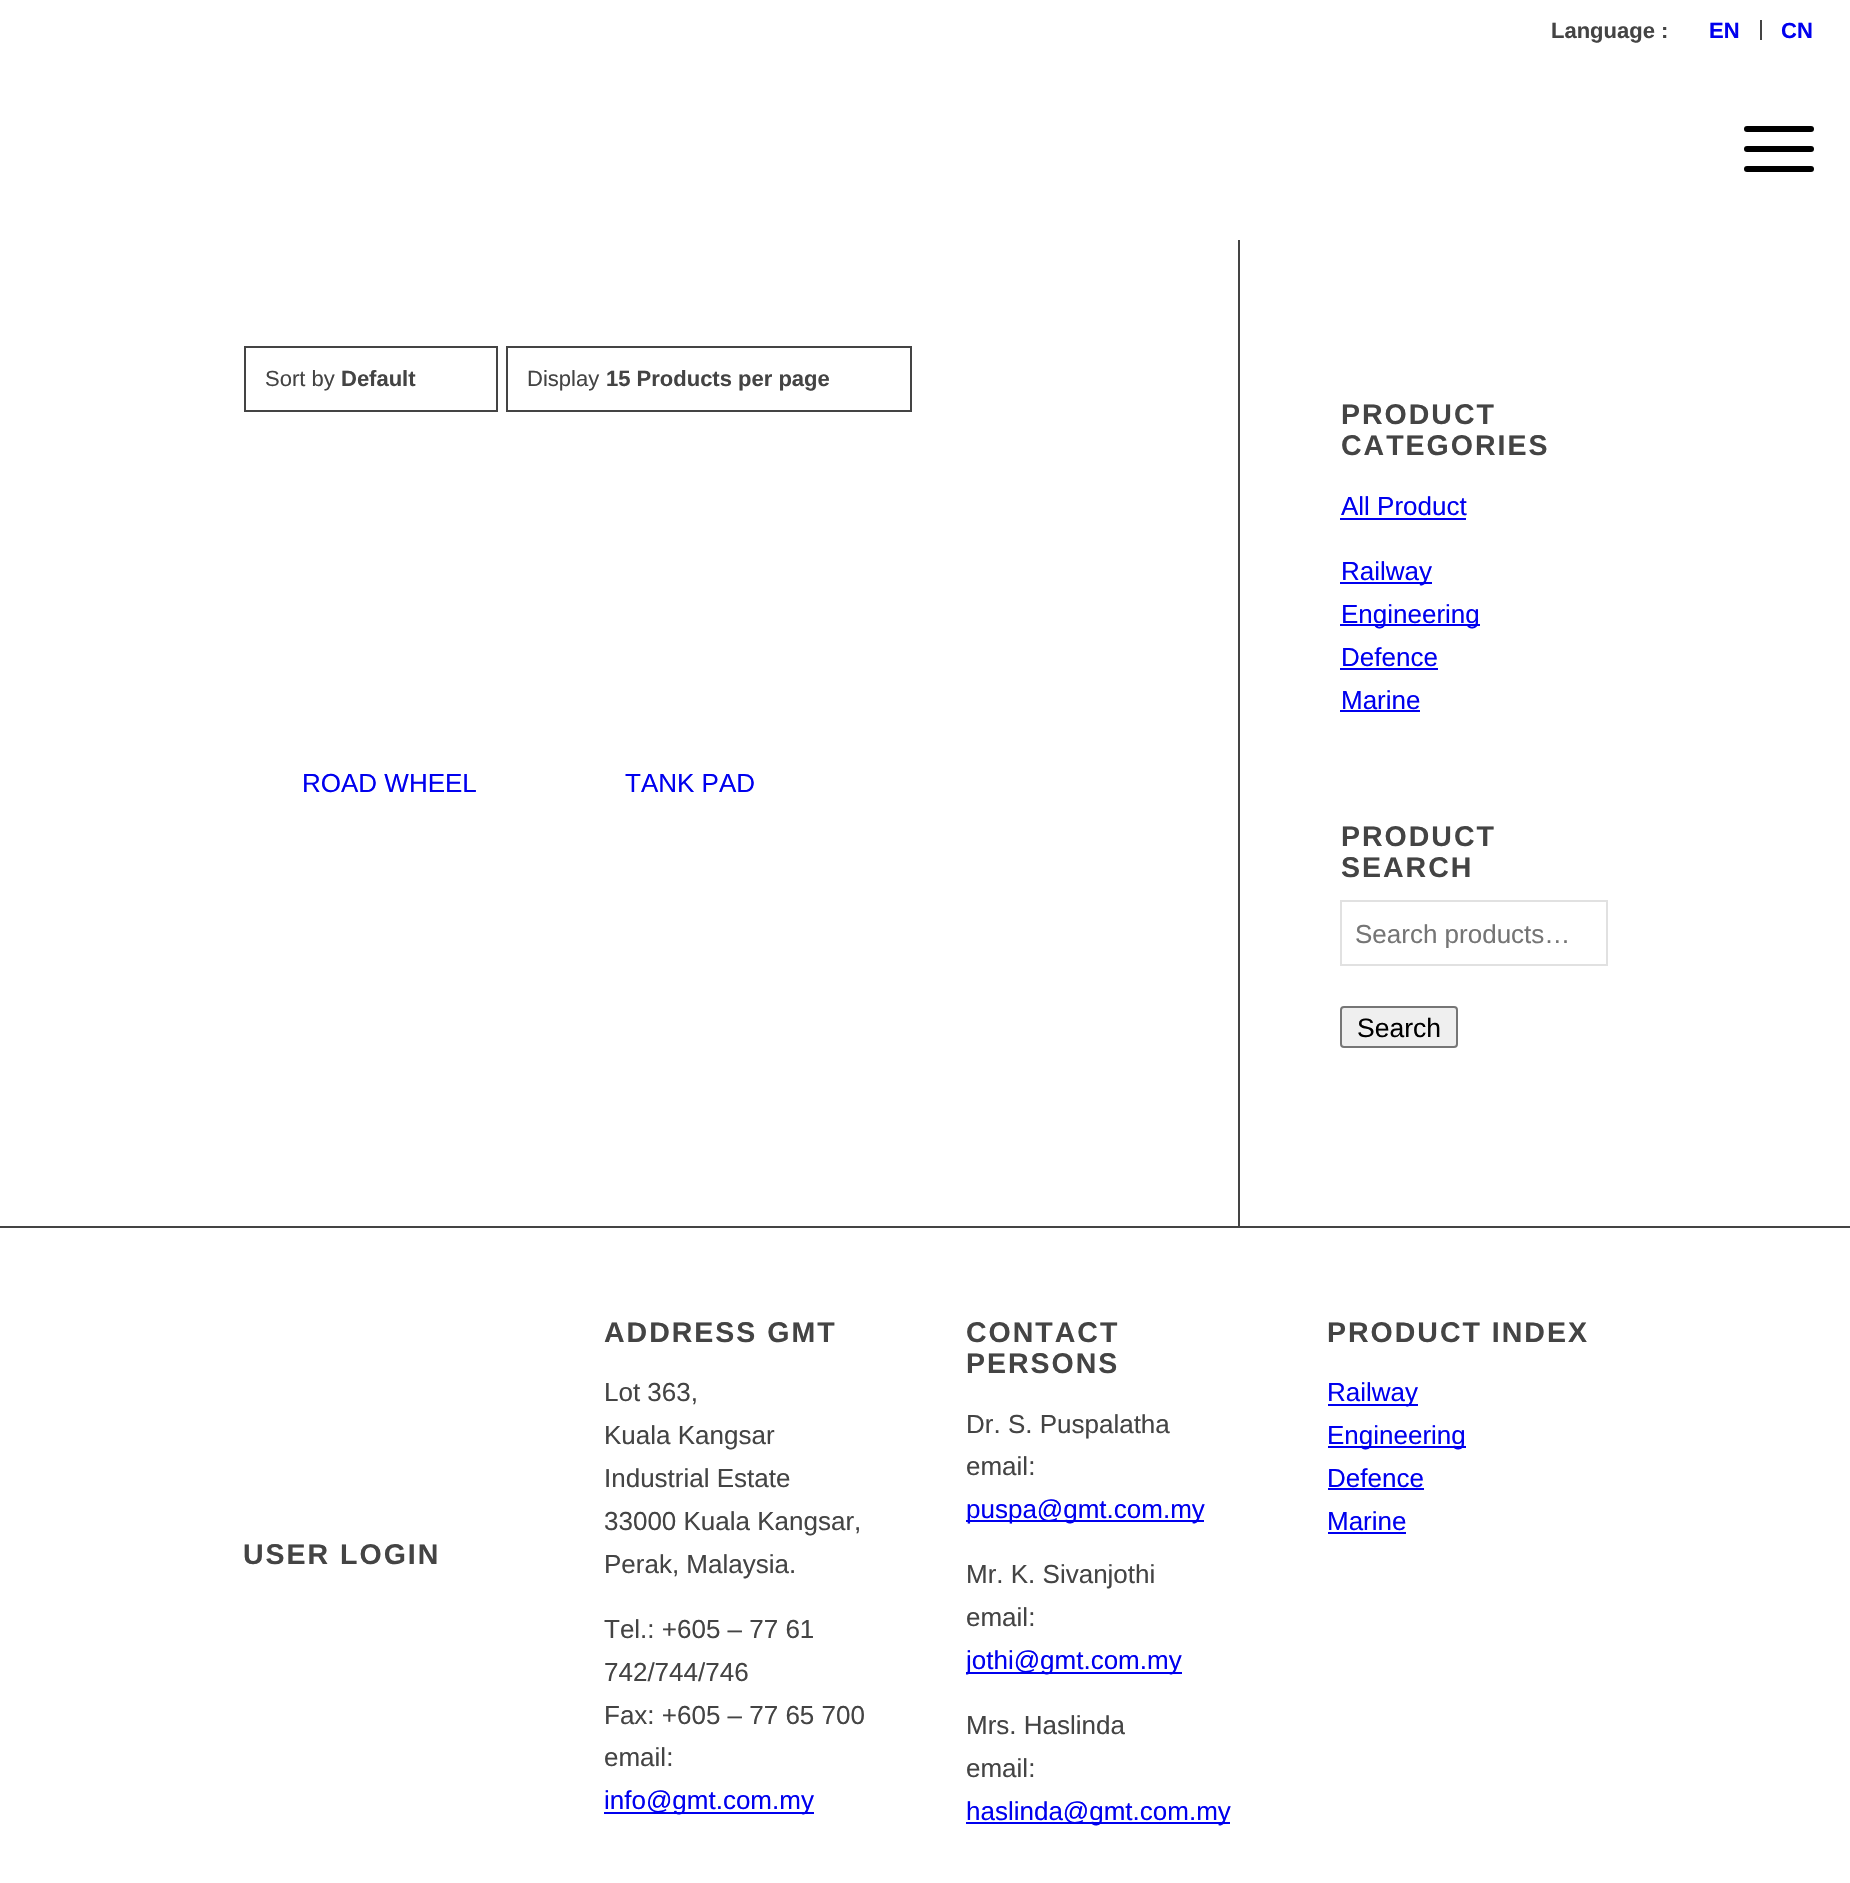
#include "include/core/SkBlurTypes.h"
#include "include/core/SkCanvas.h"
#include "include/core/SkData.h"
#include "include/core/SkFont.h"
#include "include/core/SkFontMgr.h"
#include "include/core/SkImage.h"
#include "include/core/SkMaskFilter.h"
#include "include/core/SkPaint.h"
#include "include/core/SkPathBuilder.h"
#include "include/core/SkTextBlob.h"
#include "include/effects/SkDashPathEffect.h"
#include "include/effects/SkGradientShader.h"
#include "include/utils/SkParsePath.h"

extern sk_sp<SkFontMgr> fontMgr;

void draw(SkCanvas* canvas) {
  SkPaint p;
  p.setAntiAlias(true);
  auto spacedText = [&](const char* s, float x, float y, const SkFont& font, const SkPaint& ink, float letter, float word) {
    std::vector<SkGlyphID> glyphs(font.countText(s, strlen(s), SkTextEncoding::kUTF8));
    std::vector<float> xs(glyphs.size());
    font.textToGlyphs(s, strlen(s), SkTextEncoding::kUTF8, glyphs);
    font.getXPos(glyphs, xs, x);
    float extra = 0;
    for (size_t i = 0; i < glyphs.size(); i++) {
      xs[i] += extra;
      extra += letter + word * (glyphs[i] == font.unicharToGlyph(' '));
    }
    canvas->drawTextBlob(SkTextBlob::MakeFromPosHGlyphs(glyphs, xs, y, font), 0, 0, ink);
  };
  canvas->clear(SK_ColorWHITE);
  p.setColor(SkColorSetRGB(68, 68, 68));
  canvas->drawRect(SkRect::MakeLTRB(1760, 20, 1762, 40), p);
  p.setColor(SK_ColorBLACK);
  canvas->drawRoundRect(SkRect::MakeLTRB(1744, 146, 1814, 152), 3, 3, p);
  canvas->drawRoundRect(SkRect::MakeLTRB(1744, 126, 1814, 132), 3, 3, p);
  canvas->drawRoundRect(SkRect::MakeLTRB(1744, 166, 1814, 172), 3, 3, p);
  p.setStyle(SkPaint::kStroke_Style);
  p.setStrokeWidth(2);
  p.setColor(SkColorSetRGB(68, 68, 68));
  canvas->drawRect(SkRect::MakeLTRB(245, 347, 497, 411), p);
  canvas->drawRect(SkRect::MakeLTRB(507, 347, 911, 411), p);
  p.setStyle(SkPaint::kFill_Style);
  canvas->drawRect(SkRect::MakeLTRB(1238, 240, 1240, 1226), p);
  p.setColor(SkColorSetRGB(0, 0, 238));
  canvas->drawRect(SkRect::MakeLTRB(1340, 518, 1466, 520), p);
  canvas->drawRect(SkRect::MakeLTRB(1340, 582, 1432, 584), p);
  canvas->drawRect(SkRect::MakeLTRB(1340, 624, 1480, 626), p);
  canvas->drawRect(SkRect::MakeLTRB(1340, 668, 1438, 670), p);
  canvas->drawRect(SkRect::MakeLTRB(1340, 710, 1420, 712), p);
  p.setStyle(SkPaint::kStroke_Style);
  p.setColor(SkColorSetRGB(225, 225, 225));
  canvas->drawRect(SkRect::MakeLTRB(1341, 901, 1607, 965), p);
  p.setStyle(SkPaint::kFill_Style);
  p.setColor(SkColorSetRGB(239, 239, 239));
  canvas->drawRoundRect(SkRect::MakeLTRB(1341, 1007, 1457, 1047), 3, 3, p);
  p.setStyle(SkPaint::kStroke_Style);
  p.setColor(SkColorSetRGB(118, 118, 118));
  canvas->drawRoundRect(SkRect::MakeLTRB(1341, 1007, 1457, 1047), 3, 3, p);
  p.setStyle(SkPaint::kFill_Style);
  p.setColor(SkColorSetRGB(68, 68, 68));
  canvas->drawRect(SkRect::MakeLTRB(0, 1226, 1850, 1228), p);
  p.setColor(SkColorSetRGB(0, 0, 238));
  canvas->drawRect(SkRect::MakeLTRB(604, 1812, 814, 1814), p);
  canvas->drawRect(SkRect::MakeLTRB(966, 1520, 1204, 1522), p);
  canvas->drawRect(SkRect::MakeLTRB(966, 1672, 1182, 1674), p);
  canvas->drawRect(SkRect::MakeLTRB(966, 1822, 1230, 1824), p);
  canvas->drawRect(SkRect::MakeLTRB(1328, 1404, 1418, 1406), p);
  canvas->drawRect(SkRect::MakeLTRB(1328, 1446, 1466, 1448), p);
  canvas->drawRect(SkRect::MakeLTRB(1328, 1488, 1424, 1490), p);
  canvas->drawRect(SkRect::MakeLTRB(1328, 1532, 1406, 1534), p);
  SkFont font1(fontMgr->matchFamilyStyle("Liberation Sans", SkFontStyle::Bold()), 22);
  font1.setSubpixel(true);
  p.setColor(SkColorSetRGB(68, 68, 68));
  canvas->drawString("Language :", 1551, 38, font1, p);
  p.setColor(SkColorSetRGB(0, 0, 238));
  canvas->drawString("EN", 1709, 38, font1, p);
  canvas->drawString("CN", 1781, 38, font1, p);
  SkFont font2(fontMgr->matchFamilyStyle("Liberation Sans", SkFontStyle::Normal()), 22);
  font2.setSubpixel(true);
  p.setColor(SkColorSetRGB(68, 68, 68));
  canvas->drawString("Sort by", 265, 386, font2, p);
  canvas->drawString("Default", 341, 386, font1, p);
  canvas->drawString("Display", 527, 386, font2, p);
  canvas->drawString("15 Products per page", 606, 386, font1, p);
  SkFont font3(fontMgr->matchFamilyStyle("Liberation Sans", SkFontStyle::Normal()), 26);
  font3.setSubpixel(true);
  p.setColor(SkColorSetRGB(0, 0, 238));
  canvas->drawString("ROAD WHEEL", 302, 792, font3, p);
  canvas->drawString("TANK PAD", 625, 792, font3, p);
  SkFont font4(fontMgr->matchFamilyStyle("Liberation Sans", SkFontStyle::Bold()), 28.5f);
  font4.setSubpixel(true);
  p.setColor(SkColorSetRGB(68, 68, 68));
  spacedText("PRODUCT", 1341, 424, font4, p, 2, 0);
  spacedText("CATEGORIES", 1341, 455, font4, p, 2, 0);
  p.setColor(SkColorSetRGB(0, 0, 238));
  canvas->drawString("All Product", 1341, 515, font3, p);
  canvas->drawString("Railway", 1341, 580, font3, p);
  canvas->drawString("Engineering", 1341, 623, font3, p);
  canvas->drawString("Defence", 1341, 666, font3, p);
  canvas->drawString("Marine", 1341, 709, font3, p);
  p.setColor(SkColorSetRGB(68, 68, 68));
  spacedText("PRODUCT", 1341, 846, font4, p, 2, 0);
  spacedText("SEARCH", 1341, 877, font4, p, 2, 0);
  canvas->save();
  canvas->clipRect(SkRect::MakeLTRB(1354, 918, 1568, 948));
  p.setColor(SkColorSetRGB(117, 117, 117));
  canvas->drawString("Search products…", 1355, 943, font3, p);
  canvas->restore();
  SkFont font5(fontMgr->matchFamilyStyle("Liberation Sans", SkFontStyle::Normal()), 26.5f);
  font5.setSubpixel(true);
  p.setColor(SK_ColorBLACK);
  canvas->drawString("Search", 1357, 1037, font5, p);
  p.setColor(SkColorSetRGB(68, 68, 68));
  spacedText("ADDRESS GMT", 604, 1342, font4, p, 2, 0);
  canvas->drawString("Lot 363,", 604, 1401, font3, p);
  canvas->drawString("Kuala Kangsar", 604, 1444, font3, p);
  canvas->drawString("Industrial Estate", 604, 1487, font3, p);
  canvas->drawString("33000 Kuala Kangsar,", 604, 1530, font3, p);
  canvas->drawString("Perak, Malaysia.", 604, 1573, font3, p);
  canvas->drawString("Tel.: +605 – 77 61", 604, 1638, font3, p);
  canvas->drawString("742/744/746", 604, 1681, font3, p);
  canvas->drawString("Fax: +605 – 77 65 700", 604, 1724, font3, p);
  canvas->drawString("email:", 604, 1766, font3, p);
  p.setColor(SkColorSetRGB(0, 0, 238));
  canvas->drawString("info@gmt.com.my", 604, 1809, font3, p);
  p.setColor(SkColorSetRGB(68, 68, 68));
  spacedText("CONTACT", 966, 1342, font4, p, 2, 0);
  spacedText("PERSONS", 966, 1373, font4, p, 2, 0);
  canvas->drawString("Dr. S. Puspalatha", 966, 1433, font3, p);
  canvas->drawString("email:", 966, 1475, font3, p);
  p.setColor(SkColorSetRGB(0, 0, 238));
  canvas->drawString("puspa@gmt.com.my", 966, 1518, font3, p);
  p.setColor(SkColorSetRGB(68, 68, 68));
  canvas->drawString("Mr. K. Sivanjothi", 966, 1583, font3, p);
  canvas->drawString("email:", 966, 1626, font3, p);
  canvas->save();
  canvas->clipRect(SkRect::MakeLTRB(966, 1318, 1246, 1854));
  p.setColor(SkColorSetRGB(0, 0, 238));
  canvas->drawString("jothi@gmt.com.my", 966, 1669, font3, p);
  canvas->restore();
  p.setColor(SkColorSetRGB(68, 68, 68));
  canvas->drawString("Mrs. Haslinda", 966, 1734, font3, p);
  canvas->drawString("email:", 966, 1777, font3, p);
  p.setColor(SkColorSetRGB(0, 0, 238));
  canvas->drawString("haslinda@gmt.com.my", 966, 1820, font3, p);
  p.setColor(SkColorSetRGB(68, 68, 68));
  spacedText("PRODUCT INDEX", 1327, 1342, font4, p, 2, 0);
  p.setColor(SkColorSetRGB(0, 0, 238));
  canvas->drawString("Railway", 1327, 1401, font3, p);
  canvas->drawString("Engineering", 1327, 1444, font3, p);
  canvas->drawString("Defence", 1327, 1487, font3, p);
  canvas->drawString("Marine", 1327, 1530, font3, p);
  p.setColor(SkColorSetRGB(68, 68, 68));
  spacedText("USER LOGIN", 243, 1564, font4, p, 2, 0);
}
